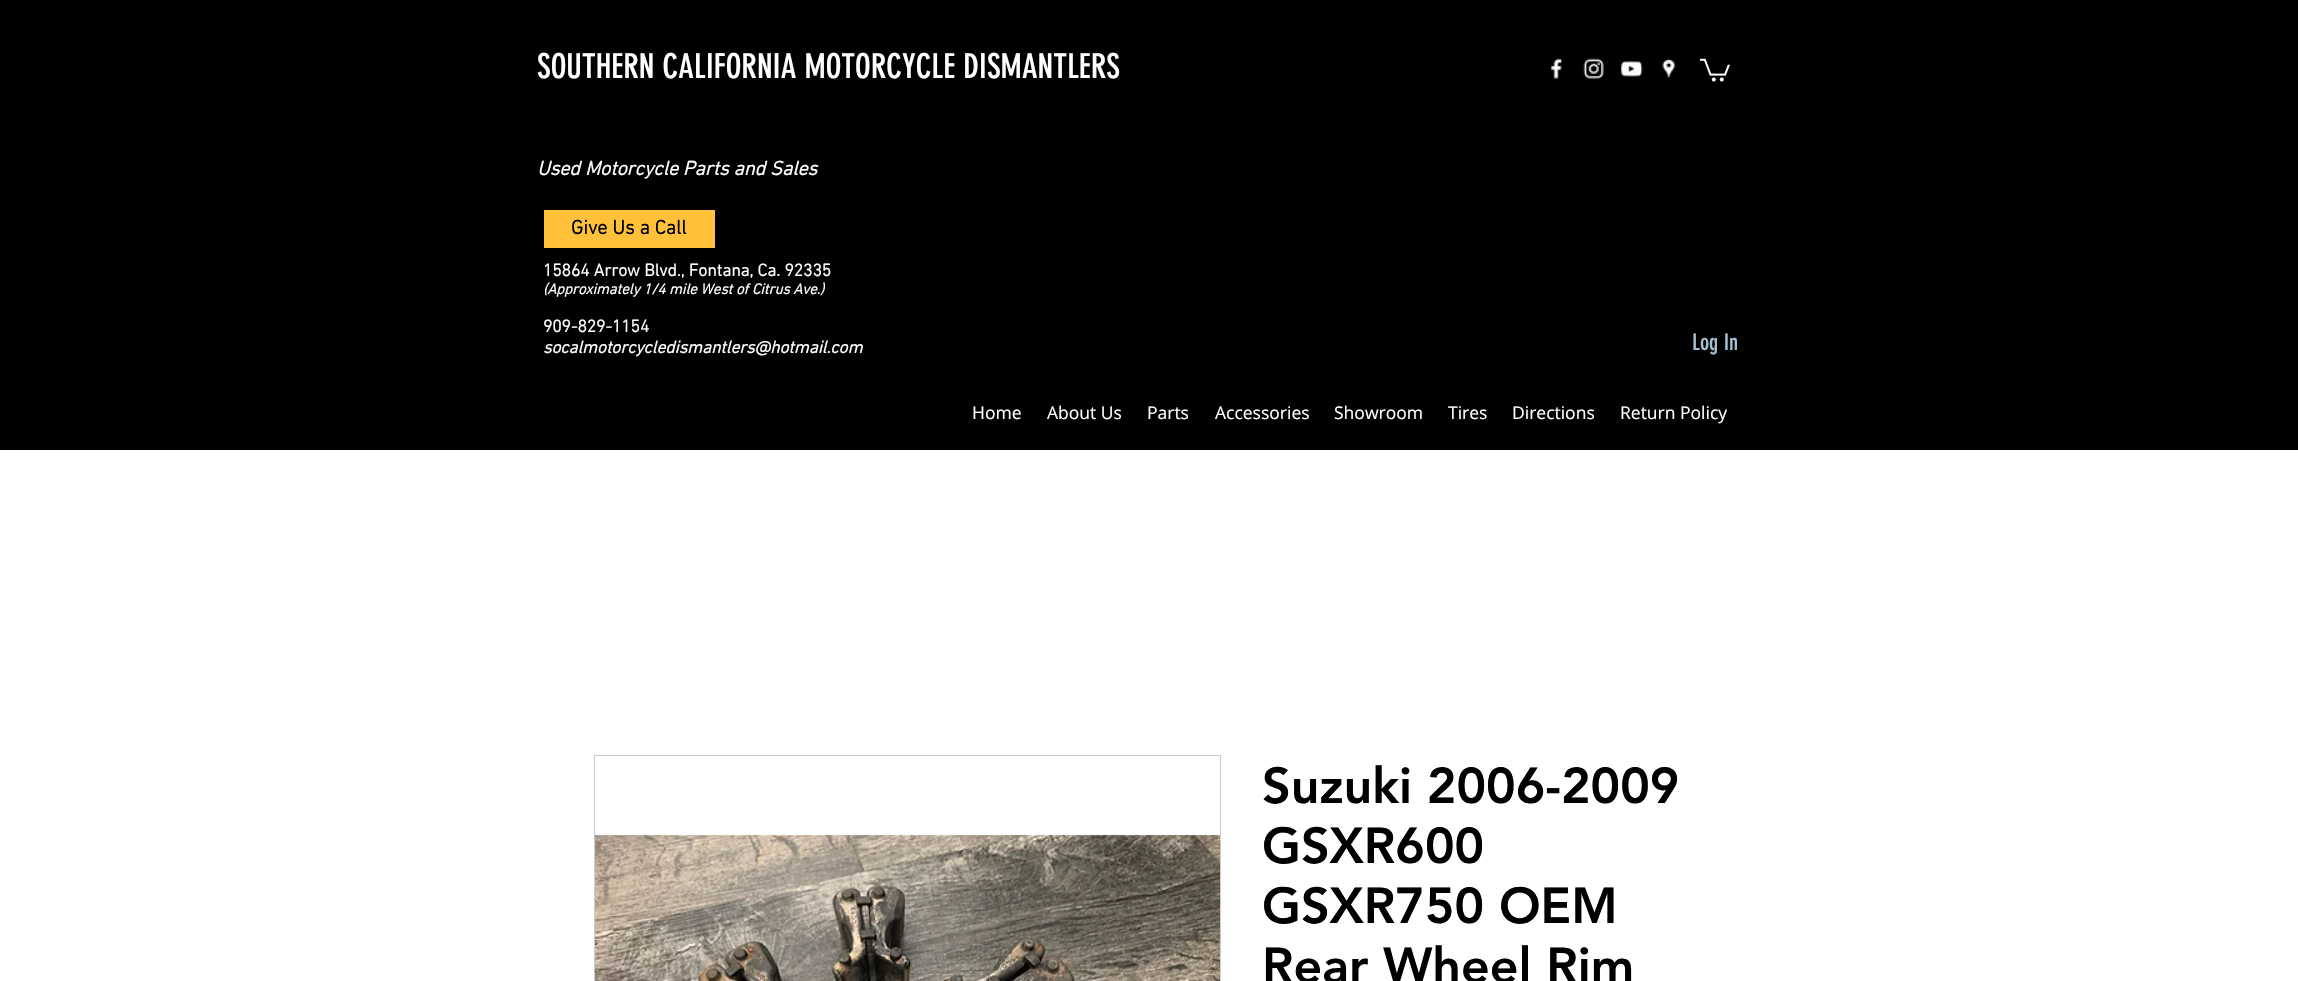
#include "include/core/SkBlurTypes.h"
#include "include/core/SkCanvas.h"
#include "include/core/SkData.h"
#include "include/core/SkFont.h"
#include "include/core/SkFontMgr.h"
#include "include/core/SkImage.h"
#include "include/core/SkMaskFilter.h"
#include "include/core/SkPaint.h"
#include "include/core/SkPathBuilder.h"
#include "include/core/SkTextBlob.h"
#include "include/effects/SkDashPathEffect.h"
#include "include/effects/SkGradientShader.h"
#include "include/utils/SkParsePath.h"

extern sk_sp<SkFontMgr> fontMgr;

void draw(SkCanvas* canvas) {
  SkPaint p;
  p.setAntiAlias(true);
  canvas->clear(SK_ColorWHITE);
  p.setColor(SK_ColorBLACK);
  canvas->drawRect(SkRect::MakeLTRB(0, 0, 2298, 450), p);
  canvas->drawImageRect(SkImages::DeferredFromEncodedData(SkData::MakeFromFileName("images/1.png")), SkRect::MakeLTRB(1551, 58, 1562, 79), SkSamplingOptions());
  canvas->drawImageRect(SkImages::DeferredFromEncodedData(SkData::MakeFromFileName("images/2.png")), SkRect::MakeLTRB(1583, 58, 1604, 79), SkSamplingOptions());
  canvas->drawImageRect(SkImages::DeferredFromEncodedData(SkData::MakeFromFileName("images/3.png")), SkRect::MakeLTRB(1620, 61, 1643, 77), SkSamplingOptions());
  canvas->drawImageRect(SkImages::DeferredFromEncodedData(SkData::MakeFromFileName("images/4.png")), SkRect::MakeLTRB(1662, 58, 1676, 78), SkSamplingOptions());
  canvas->drawImageRect(SkImages::DeferredFromEncodedData(SkData::MakeFromFileName("images/5.png")), SkRect::MakeLTRB(1700, 58, 1730, 82), SkSamplingOptions());
  p.setColor(SkColorSetRGB(255, 192, 58));
  canvas->drawRect(SkRect::MakeLTRB(544, 210, 715, 248), p);
  p.setStyle(SkPaint::kStroke_Style);
  p.setStrokeWidth(1);
  p.setColor(SkColorSetRGB(204, 204, 204));
  canvas->drawRect(SkRect::MakeLTRB(594.5f, 755.5f, 1220.5f, 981.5f), p);
  canvas->drawImageRect(SkImages::DeferredFromEncodedData(SkData::MakeFromFileName("images/6.png")), SkRect::MakeLTRB(595, 834, 1220, 981), SkSamplingOptions());
  SkFont font1(fontMgr->matchFamilyStyle("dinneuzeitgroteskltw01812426", SkFontStyle::Normal()), 33.75f);
  font1.setSubpixel(true);
  p.setStyle(SkPaint::kFill_Style);
  p.setColor(SK_ColorWHITE);
  canvas->drawString("SOUTHERN CALIFORNIA MOTORCYCLE DISMANTLERS", 537, 78, font1, p);
  SkFont font2(fontMgr->matchFamilyStyle("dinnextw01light", SkFontStyle::BoldItalic()), 20);
  font2.setSubpixel(true);
  canvas->drawString("Used Motorcycle Parts and Sales", 537, 175, font2, p);
  SkFont font3(fontMgr->matchFamilyStyle("dinnextw01light", SkFontStyle::Bold()), 20);
  font3.setSubpixel(true);
  p.setColor(SK_ColorBLACK);
  canvas->drawString("Give Us a Call", 571, 234, font3, p);
  SkFont font4(fontMgr->matchFamilyStyle("dinnextw01light", SkFontStyle::Bold()), 17.5f);
  font4.setSubpixel(true);
  p.setColor(SK_ColorWHITE);
  canvas->drawString("15864 Arrow Blvd., Fontana, Ca. 92335", 543, 276, font4, p);
  SkFont font5(fontMgr->matchFamilyStyle("dinnextw01light", SkFontStyle::BoldItalic()), 15);
  font5.setSubpixel(true);
  canvas->drawString("(Approximately 1/4 mile West of Citrus Ave.)", 543, 294, font5, p);
  canvas->drawString("909-829-1154", 543, 332, font4, p);
  SkFont font6(fontMgr->matchFamilyStyle("dinnextw01light", SkFontStyle::BoldItalic()), 17.5f);
  font6.setSubpixel(true);
  canvas->drawString("socalmotorcycledismantlers@hotmail.com", 543, 353, font6, p);
  SkFont font7(fontMgr->matchFamilyStyle("dinneuzeitgroteskltw01812426", SkFontStyle::Normal()), 22.5f);
  font7.setSubpixel(true);
  p.setColor(SkColorSetRGB(165, 192, 209));
  canvas->drawString("Log In", 1692, 350, font7, p);
  SkFont font8(fontMgr->matchFamilyStyle("Open Sans", SkFontStyle::Normal()), 17.5f);
  font8.setSubpixel(true);
  p.setColor(SK_ColorWHITE);
  canvas->drawString("Home", 972, 419, font8, p);
  canvas->drawString("About Us", 1047, 419, font8, p);
  canvas->drawString("Parts", 1147, 419, font8, p);
  canvas->drawString("Accessories", 1215, 419, font8, p);
  canvas->drawString("Showroom", 1334, 419, font8, p);
  canvas->drawString("Tires", 1448, 419, font8, p);
  canvas->drawString("Directions", 1512, 419, font8, p);
  canvas->drawString("Return Policy", 1620, 419, font8, p);
  SkFont font9(fontMgr->matchFamilyStyle("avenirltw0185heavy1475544", SkFontStyle(900, SkFontStyle::kNormal_Width, SkFontStyle::kUpright_Slant)), 50);
  font9.setSubpixel(true);
  p.setColor(SK_ColorBLACK);
  canvas->drawString("Suzuki 2006-2009", 1262, 803, font9, p);
  canvas->drawString("GSXR600", 1262, 863, font9, p);
  canvas->drawString("GSXR750 OEM", 1262, 923, font9, p);
  canvas->drawString("Rear Wheel Rim", 1262, 983, font9, p);
}
